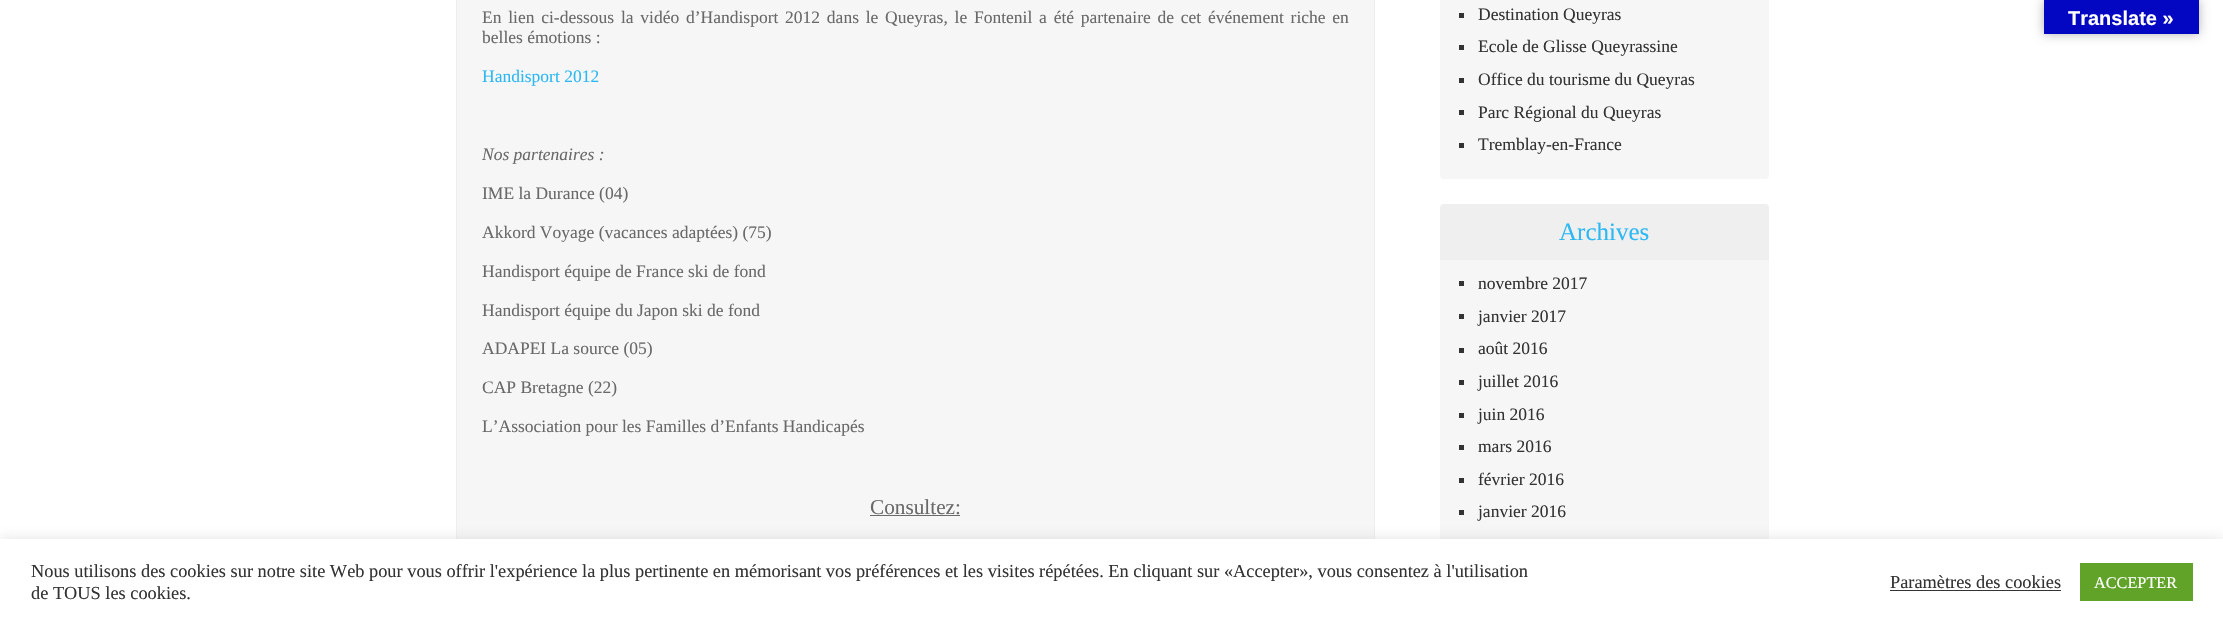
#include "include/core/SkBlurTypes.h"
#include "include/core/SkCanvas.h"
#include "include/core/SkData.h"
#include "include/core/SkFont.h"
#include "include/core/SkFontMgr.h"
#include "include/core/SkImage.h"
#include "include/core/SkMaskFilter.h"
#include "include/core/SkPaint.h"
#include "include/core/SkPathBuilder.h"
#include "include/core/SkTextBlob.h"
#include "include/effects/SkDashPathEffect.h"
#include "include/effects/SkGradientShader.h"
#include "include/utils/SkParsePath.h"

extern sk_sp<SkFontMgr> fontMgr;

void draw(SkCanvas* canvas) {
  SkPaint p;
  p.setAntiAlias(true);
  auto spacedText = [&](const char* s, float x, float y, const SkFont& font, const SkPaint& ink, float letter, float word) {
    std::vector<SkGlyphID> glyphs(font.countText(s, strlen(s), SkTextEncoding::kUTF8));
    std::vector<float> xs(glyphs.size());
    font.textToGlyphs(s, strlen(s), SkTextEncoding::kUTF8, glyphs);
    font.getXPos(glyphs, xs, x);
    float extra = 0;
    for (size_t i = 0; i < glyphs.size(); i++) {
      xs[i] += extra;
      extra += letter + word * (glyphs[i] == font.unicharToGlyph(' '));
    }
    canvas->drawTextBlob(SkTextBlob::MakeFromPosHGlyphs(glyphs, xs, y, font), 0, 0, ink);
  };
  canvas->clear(SK_ColorWHITE);
  p.setColor(SkColorSetRGB(246, 246, 246));
  canvas->drawRect(SkRect::MakeLTRB(457, 0, 1374, 539), p);
  p.setStyle(SkPaint::kStroke_Style);
  p.setStrokeWidth(1);
  p.setColor(SkColorSetRGB(238, 238, 238));
  canvas->drawRect(SkRect::MakeLTRB(456.5f, -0.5f, 1374.5f, 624.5f), p);
  p.setStyle(SkPaint::kFill_Style);
  p.setColor(SkColorSetRGB(106, 105, 105));
  canvas->drawRect(SkRect::MakeLTRB(870, 515, 960, 516), p);
  p.setColor(SkColorSetRGB(246, 246, 246));
  canvas->drawRoundRect(SkRect::MakeLTRB(1440, -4, 1769, 179), 4, 4, p);
  p.setColor(SkColorSetRGB(51, 51, 51));
  canvas->drawRect(SkRect::MakeLTRB(1459, 13, 1464, 18), p);
  canvas->drawRect(SkRect::MakeLTRB(1459, 45, 1464, 50), p);
  canvas->drawRect(SkRect::MakeLTRB(1459, 78, 1464, 83), p);
  canvas->drawRect(SkRect::MakeLTRB(1459, 110, 1464, 115), p);
  canvas->drawRect(SkRect::MakeLTRB(1459, 143, 1464, 148), p);
  p.setColor(SkColorSetRGB(246, 246, 246));
  canvas->drawRoundRect(SkRect::MakeLTRB(1440, 204, 1769, 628), 4, 4, p);
  p.setColor(SkColorSetRGB(239, 239, 239));
  canvas->drawPath(SkPathBuilder().moveTo(1444, 204).lineTo(1765, 204).cubicTo(1767, 204, 1769, 206, 1769, 208).lineTo(1769, 260).lineTo(1440, 260).lineTo(1440, 208).cubicTo(1440, 206, 1442, 204, 1444, 204).close().detach(), p);
  p.setColor(SkColorSetRGB(51, 51, 51));
  canvas->drawRect(SkRect::MakeLTRB(1459, 281, 1464, 286), p);
  canvas->drawRect(SkRect::MakeLTRB(1459, 314, 1464, 319), p);
  canvas->drawRect(SkRect::MakeLTRB(1459, 348, 1464, 353), p);
  canvas->drawRect(SkRect::MakeLTRB(1459, 380, 1464, 385), p);
  canvas->drawRect(SkRect::MakeLTRB(1459, 413, 1464, 418), p);
  canvas->drawRect(SkRect::MakeLTRB(1459, 445, 1464, 450), p);
  canvas->drawRect(SkRect::MakeLTRB(1459, 478, 1464, 483), p);
  canvas->drawRect(SkRect::MakeLTRB(1459, 510, 1464, 515), p);
  p.setColor(SkColorSetARGB(77, 0, 0, 0));
  p.setMaskFilter(SkMaskFilter::MakeBlur(kNormal_SkBlurStyle, 5.5f));
  canvas->drawRect(SkRect::MakeLTRB(2044, 0, 2199, 34), p);
  p.setMaskFilter(nullptr);
  p.setColor(SkColorSetRGB(3, 7, 193));
  canvas->drawRect(SkRect::MakeLTRB(2044, 0, 2199, 34), p);
  p.setColor(SkColorSetARGB(77, 172, 171, 171));
  p.setMaskFilter(SkMaskFilter::MakeBlur(kNormal_SkBlurStyle, 6));
  canvas->drawRect(SkRect::MakeLTRB(0, 538, 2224, 624), p);
  p.setMaskFilter(nullptr);
  p.setColor(SK_ColorWHITE);
  canvas->drawRect(SkRect::MakeLTRB(0, 539, 2223, 624), p);
  p.setColor(SkColorSetRGB(51, 51, 51));
  canvas->drawRect(SkRect::MakeLTRB(1890, 590, 2061, 591), p);
  p.setColor(SkColorSetRGB(97, 162, 41));
  canvas->drawRect(SkRect::MakeLTRB(2080, 563, 2193, 601), p);
  SkFont font1(fontMgr->matchFamilyStyle("Liberation Serif", SkFontStyle::Normal()), 17.5f);
  font1.setSubpixel(true);
  p.setColor(SkColorSetRGB(106, 105, 105));
  spacedText("En lien ci-dessous la vidéo d’Handisport 2012 dans le Queyras, le Fontenil a été partenaire de cet événement riche en", 482, 23, font1, p, 0, 2.4f);
  canvas->drawString("belles émotions :", 482, 43, font1, p);
  p.setColor(SkColorSetRGB(44, 184, 243));
  canvas->drawString("Handisport 2012", 482, 82, font1, p);
  SkFont font2(fontMgr->matchFamilyStyle("Liberation Serif", SkFontStyle::Italic()), 17.5f);
  font2.setSubpixel(true);
  p.setColor(SkColorSetRGB(106, 105, 105));
  canvas->drawString("Nos partenaires :", 482, 160, font2, p);
  canvas->drawString("IME la Durance (04)", 482, 199, font1, p);
  canvas->drawString("Akkord Voyage (vacances adaptées) (75)", 482, 238, font1, p);
  canvas->drawString("Handisport équipe de France ski de fond", 482, 277, font1, p);
  canvas->drawString("Handisport équipe du Japon ski de fond", 482, 316, font1, p);
  canvas->drawString("ADAPEI La source (05)", 482, 354, font1, p);
  canvas->drawString("CAP Bretagne (22)", 482, 393, font1, p);
  canvas->drawString("L’Association pour les Familles d’Enfants Handicapés", 482, 432, font1, p);
  SkFont font3(fontMgr->matchFamilyStyle("Liberation Serif", SkFontStyle::Normal()), 21.25f);
  font3.setSubpixel(true);
  canvas->drawString("Consultez:", 870, 514, font3, p);
  p.setColor(SkColorSetRGB(51, 51, 51));
  canvas->drawString("Destination Queyras", 1478, 20, font1, p);
  canvas->drawString("Ecole de Glisse Queyrassine", 1478, 52, font1, p);
  canvas->drawString("Office du tourisme du Queyras", 1478, 85, font1, p);
  canvas->drawString("Parc Régional du Queyras", 1478, 118, font1, p);
  canvas->drawString("Tremblay-en-France", 1478, 150, font1, p);
  SkFont font4(fontMgr->matchFamilyStyle("Liberation Serif", SkFontStyle::Normal()), 25);
  font4.setSubpixel(true);
  p.setColor(SkColorSetRGB(44, 184, 243));
  canvas->drawString("Archives", 1559, 240, font4, p);
  p.setColor(SkColorSetRGB(51, 51, 51));
  canvas->drawString("novembre 2017", 1478, 289, font1, p);
  canvas->drawString("janvier 2017", 1478, 322, font1, p);
  canvas->drawString("août 2016", 1478, 354, font1, p);
  canvas->drawString("juillet 2016", 1478, 387, font1, p);
  canvas->drawString("juin 2016", 1478, 420, font1, p);
  canvas->drawString("mars 2016", 1478, 452, font1, p);
  canvas->drawString("février 2016", 1478, 485, font1, p);
  canvas->drawString("janvier 2016", 1478, 517, font1, p);
  SkFont font5(fontMgr->matchFamilyStyle("Liberation Sans", SkFontStyle::Bold()), 20);
  font5.setSubpixel(true);
  p.setColor(SK_ColorWHITE);
  canvas->drawString("Translate »", 2068, 25, font5, p);
  SkFont font6(fontMgr->matchFamilyStyle("Liberation Serif", SkFontStyle::Normal()), 18.33f);
  font6.setSubpixel(true);
  p.setColor(SkColorSetRGB(51, 51, 51));
  canvas->drawString("Nous utilisons des cookies sur notre site Web pour vous offrir l'expérience la plus pertinente en mémorisant vos préférences et les visites répétées. En cliquant sur «Accepter», vous consentez à l'utilisation", 31, 577, font6, p);
  canvas->drawString("de TOUS les cookies.", 31, 599, font6, p);
  canvas->drawString("Paramètres des cookies", 1890, 588, font6, p);
  SkFont font7(fontMgr->matchFamilyStyle("Liberation Serif", SkFontStyle::Normal()), 16.25f);
  font7.setSubpixel(true);
  p.setColor(SK_ColorWHITE);
  canvas->drawString("ACCEPTER", 2094, 588, font7, p);
}
